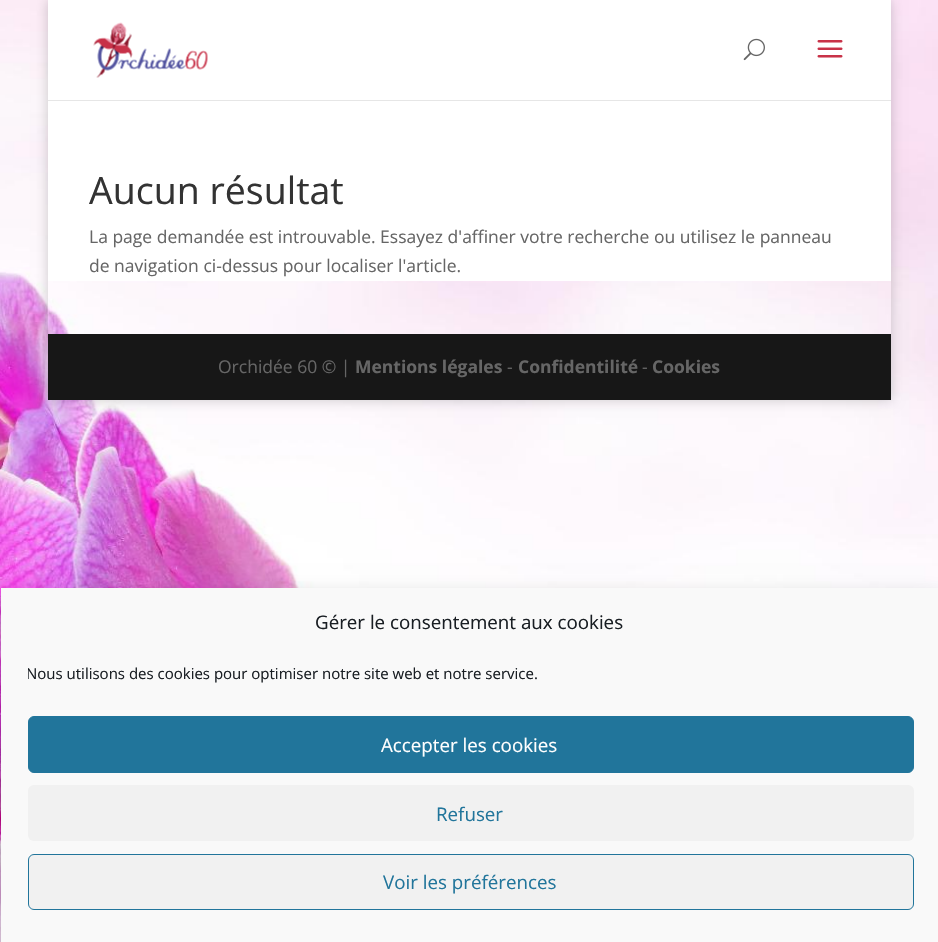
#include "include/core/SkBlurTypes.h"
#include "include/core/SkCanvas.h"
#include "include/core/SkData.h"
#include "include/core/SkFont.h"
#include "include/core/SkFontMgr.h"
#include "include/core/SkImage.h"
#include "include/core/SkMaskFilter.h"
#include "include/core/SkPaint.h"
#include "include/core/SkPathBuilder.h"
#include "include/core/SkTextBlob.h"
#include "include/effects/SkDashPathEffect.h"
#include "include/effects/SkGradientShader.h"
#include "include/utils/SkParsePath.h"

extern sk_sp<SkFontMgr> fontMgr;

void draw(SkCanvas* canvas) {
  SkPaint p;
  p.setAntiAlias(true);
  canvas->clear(SK_ColorWHITE);
  canvas->drawImageRect(SkImages::DeferredFromEncodedData(SkData::MakeFromFileName("images/1.png")), SkRect::MakeLTRB(0, 0, 938, 942), SkSamplingOptions());
  canvas->save();
  canvas->clipPath(SkPathBuilder(SkPathFillType::kEvenOdd).moveTo(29, 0).lineTo(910, 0).lineTo(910, 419).lineTo(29, 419).close().moveTo(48, 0).lineTo(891, 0).lineTo(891, 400).lineTo(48, 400).close().detach(), true);
  p.setColor(SkColorSetARGB(51, 0, 0, 0));
  p.setMaskFilter(SkMaskFilter::MakeBlur(kNormal_SkBlurStyle, 6));
  canvas->drawRect(SkRect::MakeLTRB(48, 0, 891, 400), p);
  p.setMaskFilter(nullptr);
  canvas->restore();
  p.setColor(SkColorSetRGB(230, 230, 230));
  canvas->drawRect(SkRect::MakeLTRB(48, 100, 891, 101), p);
  p.setColor(SK_ColorWHITE);
  canvas->drawRect(SkRect::MakeLTRB(48, 0, 891, 100), p);
  canvas->drawImageRect(SkImages::DeferredFromEncodedData(SkData::MakeFromFileName("images/2.png")), SkRect::MakeLTRB(93, 22, 208, 78), SkSamplingOptions());
  canvas->drawImageRect(SkImages::DeferredFromEncodedData(SkData::MakeFromFileName("images/3.png")), SkRect::MakeLTRB(743, 38, 765, 61), SkSamplingOptions());
  canvas->drawImageRect(SkImages::DeferredFromEncodedData(SkData::MakeFromFileName("images/4.png")), SkRect::MakeLTRB(817, 40, 843, 58), SkSamplingOptions());
  canvas->drawRect(SkRect::MakeLTRB(48, 101, 891, 281), p);
  p.setColor(SkColorSetRGB(23, 23, 23));
  canvas->drawRect(SkRect::MakeLTRB(48, 334, 891, 400), p);
  p.setColor(SkColorSetARGB(59, 0, 0, 0));
  p.setMaskFilter(SkMaskFilter::MakeBlur(kNormal_SkBlurStyle, 4));
  canvas->drawRect(SkRect::MakeLTRB(1, 595, 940, 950), p);
  p.setMaskFilter(nullptr);
  p.setColor(SkColorSetARGB(48, 0, 0, 0));
  p.setMaskFilter(SkMaskFilter::MakeBlur(kNormal_SkBlurStyle, 12.5f));
  canvas->drawRect(SkRect::MakeLTRB(1, 600, 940, 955), p);
  p.setMaskFilter(nullptr);
  p.setColor(SkColorSetRGB(249, 249, 249));
  canvas->drawRect(SkRect::MakeLTRB(1, 588, 938, 942), p);
  p.setColor(SkColorSetRGB(33, 117, 155));
  canvas->drawRoundRect(SkRect::MakeLTRB(28.5f, 716.5f, 913.5f, 772.5f), 5.5f, 5.5f, p);
  p.setStyle(SkPaint::kStroke_Style);
  p.setStrokeWidth(1);
  canvas->drawRoundRect(SkRect::MakeLTRB(28.5f, 716.5f, 913.5f, 772.5f), 5.5f, 5.5f, p);
  p.setStyle(SkPaint::kFill_Style);
  p.setColor(SkColorSetRGB(241, 241, 241));
  canvas->drawRoundRect(SkRect::MakeLTRB(28, 785, 914, 841), 6, 6, p);
  canvas->drawRoundRect(SkRect::MakeLTRB(28.5f, 854.5f, 913.5f, 909.5f), 5.5f, 5.5f, p);
  p.setStyle(SkPaint::kStroke_Style);
  p.setColor(SkColorSetRGB(33, 117, 155));
  canvas->drawRoundRect(SkRect::MakeLTRB(28.5f, 854.5f, 913.5f, 909.5f), 5.5f, 5.5f, p);
  SkFont font1(fontMgr->matchFamilyStyle("Open Sans", SkFontStyle::Normal()), 37.5f);
  font1.setSubpixel(true);
  p.setStyle(SkPaint::kFill_Style);
  p.setColor(SkColorSetRGB(51, 51, 51));
  canvas->drawString("Aucun résultat", 89, 204, font1, p);
  SkFont font2(fontMgr->matchFamilyStyle("Open Sans", SkFontStyle::Normal()), 17.5f);
  font2.setSubpixel(true);
  p.setColor(SkColorSetRGB(102, 102, 102));
  canvas->drawString("La page demandée est introuvable. Essayez d'affiner votre recherche ou utilisez le panneau", 89, 243, font2, p);
  canvas->drawString("de navigation ci-dessus pour localiser l'article.", 89, 272, font2, p);
  canvas->drawString("Orchidée 60 © |", 218, 373, font2, p);
  SkFont font3(fontMgr->matchFamilyStyle("Open Sans", SkFontStyle::Bold()), 17.5f);
  font3.setSubpixel(true);
  canvas->drawString("Mentions légales", 355, 373, font3, p);
  canvas->drawString("-", 507, 373, font2, p);
  canvas->drawString("Confidentilité", 518, 373, font3, p);
  canvas->drawString("-", 642, 373, font2, p);
  canvas->drawString("Cookies", 652, 373, font3, p);
  SkFont font4(fontMgr->matchFamilyStyle("Open Sans", SkFontStyle::Normal()), 18.75f);
  font4.setSubpixel(true);
  p.setColor(SkColorSetRGB(25, 30, 35));
  canvas->drawString("Gérer le consentement aux cookies", 315, 629, font4, p);
  canvas->save();
  canvas->clipRect(SkRect::MakeLTRB(28, 663, 914, 691));
  SkFont font5(fontMgr->matchFamilyStyle("Open Sans", SkFontStyle::Normal()), 15);
  font5.setSubpixel(true);
  canvas->drawString("Nous utilisons des cookies pour optimiser notre site web et notre service.", 26, 679, font5, p);
  canvas->restore();
  p.setColor(SK_ColorWHITE);
  canvas->drawString("Accepter les cookies", 381, 752, font4, p);
  p.setColor(SkColorSetRGB(33, 117, 155));
  canvas->drawString("Refuser", 436, 821, font4, p);
  canvas->drawString("Voir les préférences", 383, 889, font4, p);
}
